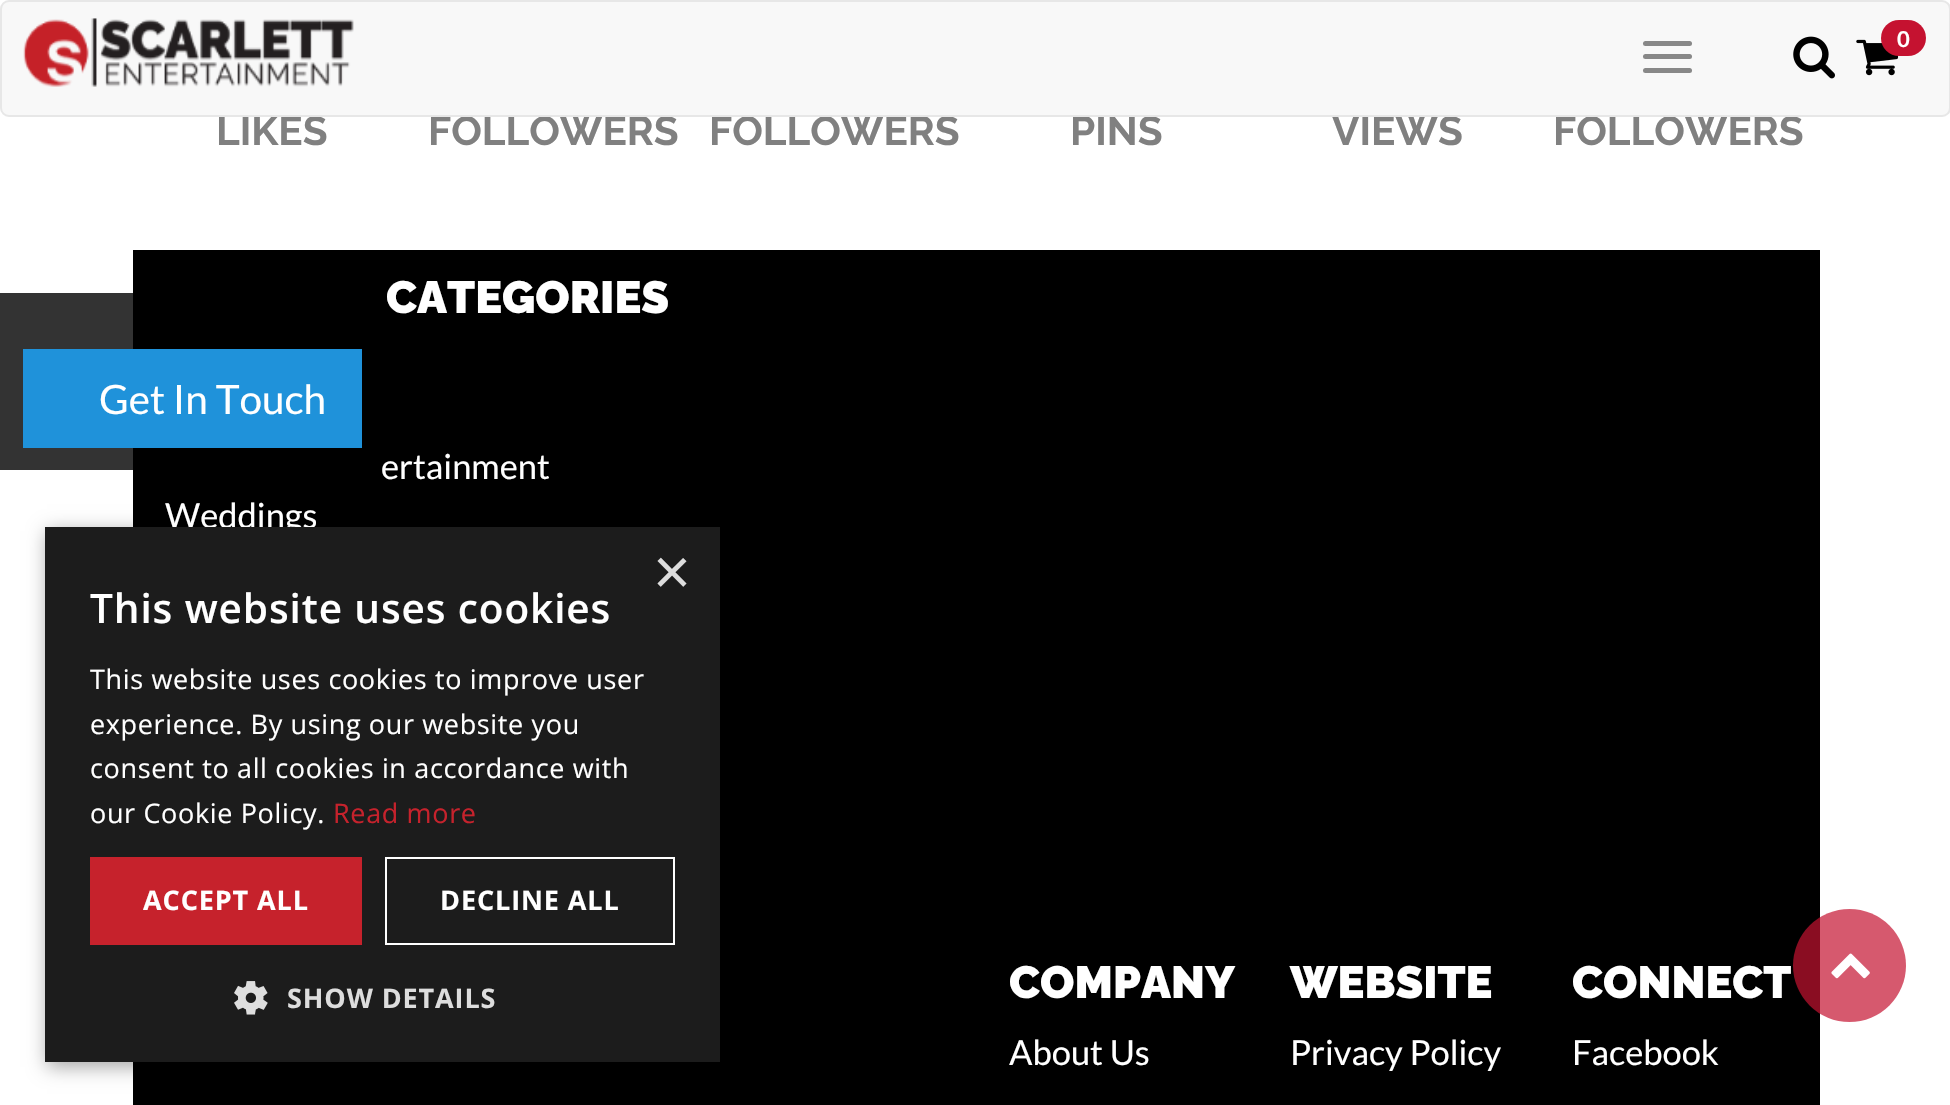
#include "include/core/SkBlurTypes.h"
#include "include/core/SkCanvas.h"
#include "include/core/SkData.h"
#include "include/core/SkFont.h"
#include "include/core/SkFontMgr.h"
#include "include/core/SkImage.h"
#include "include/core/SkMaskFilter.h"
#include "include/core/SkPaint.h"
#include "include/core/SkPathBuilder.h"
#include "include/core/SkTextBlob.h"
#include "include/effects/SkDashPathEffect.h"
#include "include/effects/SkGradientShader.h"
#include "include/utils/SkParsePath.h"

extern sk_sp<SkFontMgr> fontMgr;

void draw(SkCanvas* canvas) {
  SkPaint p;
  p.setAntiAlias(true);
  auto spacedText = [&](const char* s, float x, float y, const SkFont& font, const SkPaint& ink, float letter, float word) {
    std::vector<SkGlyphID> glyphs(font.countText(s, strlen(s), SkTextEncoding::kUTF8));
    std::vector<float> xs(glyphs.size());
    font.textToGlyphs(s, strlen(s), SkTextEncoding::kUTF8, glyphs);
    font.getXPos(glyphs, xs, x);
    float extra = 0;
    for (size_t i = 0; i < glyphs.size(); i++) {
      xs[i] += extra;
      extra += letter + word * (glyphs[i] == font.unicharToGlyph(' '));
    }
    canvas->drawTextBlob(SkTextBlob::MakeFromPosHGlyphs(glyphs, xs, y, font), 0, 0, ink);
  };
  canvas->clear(SK_ColorWHITE);
  p.setColor(SK_ColorBLACK);
  canvas->drawRect(SkRect::MakeLTRB(133, 250, 1820, 1105), p);
  p.setColor(SkColorSetARGB(179, 197, 18, 48));
  canvas->drawCircle(1849.5f, 965.5f, 56.5f, p);
  canvas->drawImageRect(SkImages::DeferredFromEncodedData(SkData::MakeFromFileName("images/4.png")), SkRect::MakeLTRB(1831, 953, 1870, 979), SkSamplingOptions());
  p.setColor(SkColorSetARGB(89, 0, 0, 0));
  p.setMaskFilter(SkMaskFilter::MakeBlur(kNormal_SkBlurStyle, 9));
  canvas->drawRect(SkRect::MakeLTRB(47, 531, 722, 1067), p);
  p.setMaskFilter(nullptr);
  SkFont font1(fontMgr->matchFamilyStyle("Raleway", SkFontStyle::Bold()), 40.5f);
  font1.setSubpixel(true);
  p.setColor(SkColorSetRGB(128, 128, 128));
  canvas->drawString("LIKES", 216, 145, font1, p);
  canvas->drawString("FOLLOWERS", 428, 145, font1, p);
  canvas->drawString("FOLLOWERS", 709, 145, font1, p);
  canvas->drawString("PINS", 1070, 145, font1, p);
  canvas->drawString("VIEWS", 1332, 145, font1, p);
  canvas->drawString("FOLLOWERS", 1553, 145, font1, p);
  p.setColor(SkColorSetRGB(248, 248, 248));
  canvas->drawRoundRect(SkRect::MakeLTRB(1, 1, 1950, 116), 8, 8, p);
  p.setStyle(SkPaint::kStroke_Style);
  p.setStrokeWidth(2);
  p.setColor(SkColorSetRGB(231, 231, 231));
  canvas->drawRoundRect(SkRect::MakeLTRB(1, 1, 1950, 116), 8, 8, p);
  canvas->drawImageRect(SkImages::DeferredFromEncodedData(SkData::MakeFromFileName("images/3.png")), SkRect::MakeLTRB(1856, 39, 1899, 76), SkSamplingOptions());
  p.setStyle(SkPaint::kFill_Style);
  p.setColor(SkColorSetRGB(197, 18, 48));
  canvas->drawRoundRect(SkRect::MakeLTRB(1881, 20, 1926, 56), 18, 18, p);
  SkFont font2(fontMgr->matchFamilyStyle("Lato", SkFontStyle::Bold()), 22);
  font2.setSubpixel(true);
  p.setColor(SK_ColorWHITE);
  canvas->drawString("0", 1897, 47, font2, p);
  p.setColor(SkColorSetRGB(136, 136, 136));
  canvas->drawRoundRect(SkRect::MakeLTRB(1643, 68, 1692, 73), 2.5f, 2.5f, p);
  canvas->drawRoundRect(SkRect::MakeLTRB(1643, 54, 1692, 59), 2.5f, 2.5f, p);
  canvas->drawRoundRect(SkRect::MakeLTRB(1643, 41, 1692, 46), 2.5f, 2.5f, p);
  canvas->drawImageRect(SkImages::DeferredFromEncodedData(SkData::MakeFromFileName("images/2.png")), SkRect::MakeLTRB(1793, 36, 1835, 79), SkSamplingOptions());
  canvas->drawImageRect(SkImages::DeferredFromEncodedData(SkData::MakeFromFileName("images/1.png")), SkRect::MakeLTRB(23, 18, 354, 87), SkSamplingOptions());
  SkFont font3(fontMgr->matchFamilyStyle("Raleway", SkFontStyle(900, SkFontStyle::kNormal_Width, SkFontStyle::kUpright_Slant)), 45);
  font3.setSubpixel(true);
  p.setColor(SK_ColorWHITE);
  canvas->drawString("CATEGORIES", 386, 313, font3, p);
  SkFont font4(fontMgr->matchFamilyStyle("Lato", SkFontStyle::Normal()), 34.5f);
  font4.setSubpixel(true);
  canvas->drawString("ertainment", 381, 479, font4, p);
  canvas->drawString("Weddings", 165, 528, font4, p);
  canvas->drawString("COMPANY", 1009, 998, font3, p);
  canvas->drawString("About Us", 1009, 1065, font4, p);
  canvas->drawString("WEBSITE", 1290, 998, font3, p);
  canvas->drawString("Privacy Policy", 1290, 1065, font4, p);
  canvas->drawString("CONNECT", 1572, 998, font3, p);
  canvas->drawString("Facebook", 1572, 1065, font4, p);
  p.setColor(SkColorSetARGB(204, 0, 0, 0));
  canvas->drawPath(SkPathBuilder().moveTo(0, 293).lineTo(362, 293).cubicTo(374.5f, 293, 385, 303.5f, 385, 316).lineTo(385, 447).cubicTo(385, 459.5f, 374.5f, 470, 362, 470).lineTo(0, 470).close().detach(), p);
  p.setColor(SkColorSetRGB(31, 146, 218));
  canvas->drawRect(SkRect::MakeLTRB(23, 349, 362, 448), p);
  SkFont font5(fontMgr->matchFamilyStyle("Lato", SkFontStyle::Normal()), 40.5f);
  font5.setSubpixel(true);
  p.setColor(SK_ColorWHITE);
  canvas->drawString("Get In Touch", 99, 414, font5, p);
  p.setColor(SkColorSetRGB(28, 28, 28));
  canvas->drawRect(SkRect::MakeLTRB(45, 527, 720, 1062), p);
  SkFont font6(fontMgr->matchFamilyStyle("Liberation Sans", SkFontStyle::Normal()), 65);
  font6.setSubpixel(true);
  p.setColor(SkColorSetRGB(221, 221, 221));
  canvas->drawString("×", 653, 594, font6, p);
  SkFont font7(fontMgr->matchFamilyStyle("Open Sans", SkFontStyle(600, SkFontStyle::kNormal_Width, SkFontStyle::kUpright_Slant)), 40.5f);
  font7.setSubpixel(true);
  p.setColor(SK_ColorWHITE);
  spacedText("This website uses cookies", 90, 623, font7, p, 0.9f, 0);
  SkFont font8(fontMgr->matchFamilyStyle("Open Sans", SkFontStyle::Normal()), 27);
  font8.setSubpixel(true);
  spacedText("This website uses cookies to improve user", 90, 689, font8, p, 0.65f, 0);
  spacedText("experience. By using our website you", 90, 734, font8, p, 0.65f, 0);
  spacedText("consent to all cookies in accordance with", 90, 778, font8, p, 0.65f, 0);
  spacedText("our Cookie Policy.", 90, 823, font8, p, 0.65f, 0);
  p.setColor(SkColorSetRGB(198, 34, 44));
  spacedText("Read more", 333, 823, font8, p, 0.65f, 0);
  canvas->drawRect(SkRect::MakeLTRB(90, 857, 362, 945), p);
  SkFont font9(fontMgr->matchFamilyStyle("Open Sans", SkFontStyle::Bold()), 27);
  font9.setSubpixel(true);
  p.setColor(SK_ColorWHITE);
  spacedText("ACCEPT ALL", 143, 910, font9, p, 0.9f, 0);
  p.setStyle(SkPaint::kStroke_Style);
  canvas->drawRect(SkRect::MakeLTRB(386, 858, 674, 944), p);
  p.setStyle(SkPaint::kFill_Style);
  spacedText("DECLINE ALL", 440, 910, font9, p, 0.9f, 0);
  canvas->drawImageRect(SkImages::DeferredFromEncodedData(SkData::MakeFromFileName("images/5.png")), SkRect::MakeLTRB(234, 981, 268, 1015), SkSamplingOptions());
  p.setColor(SkColorSetRGB(221, 221, 221));
  spacedText("SHOW DETAILS", 287, 1008, font9, p, 0.9f, 0);
}
